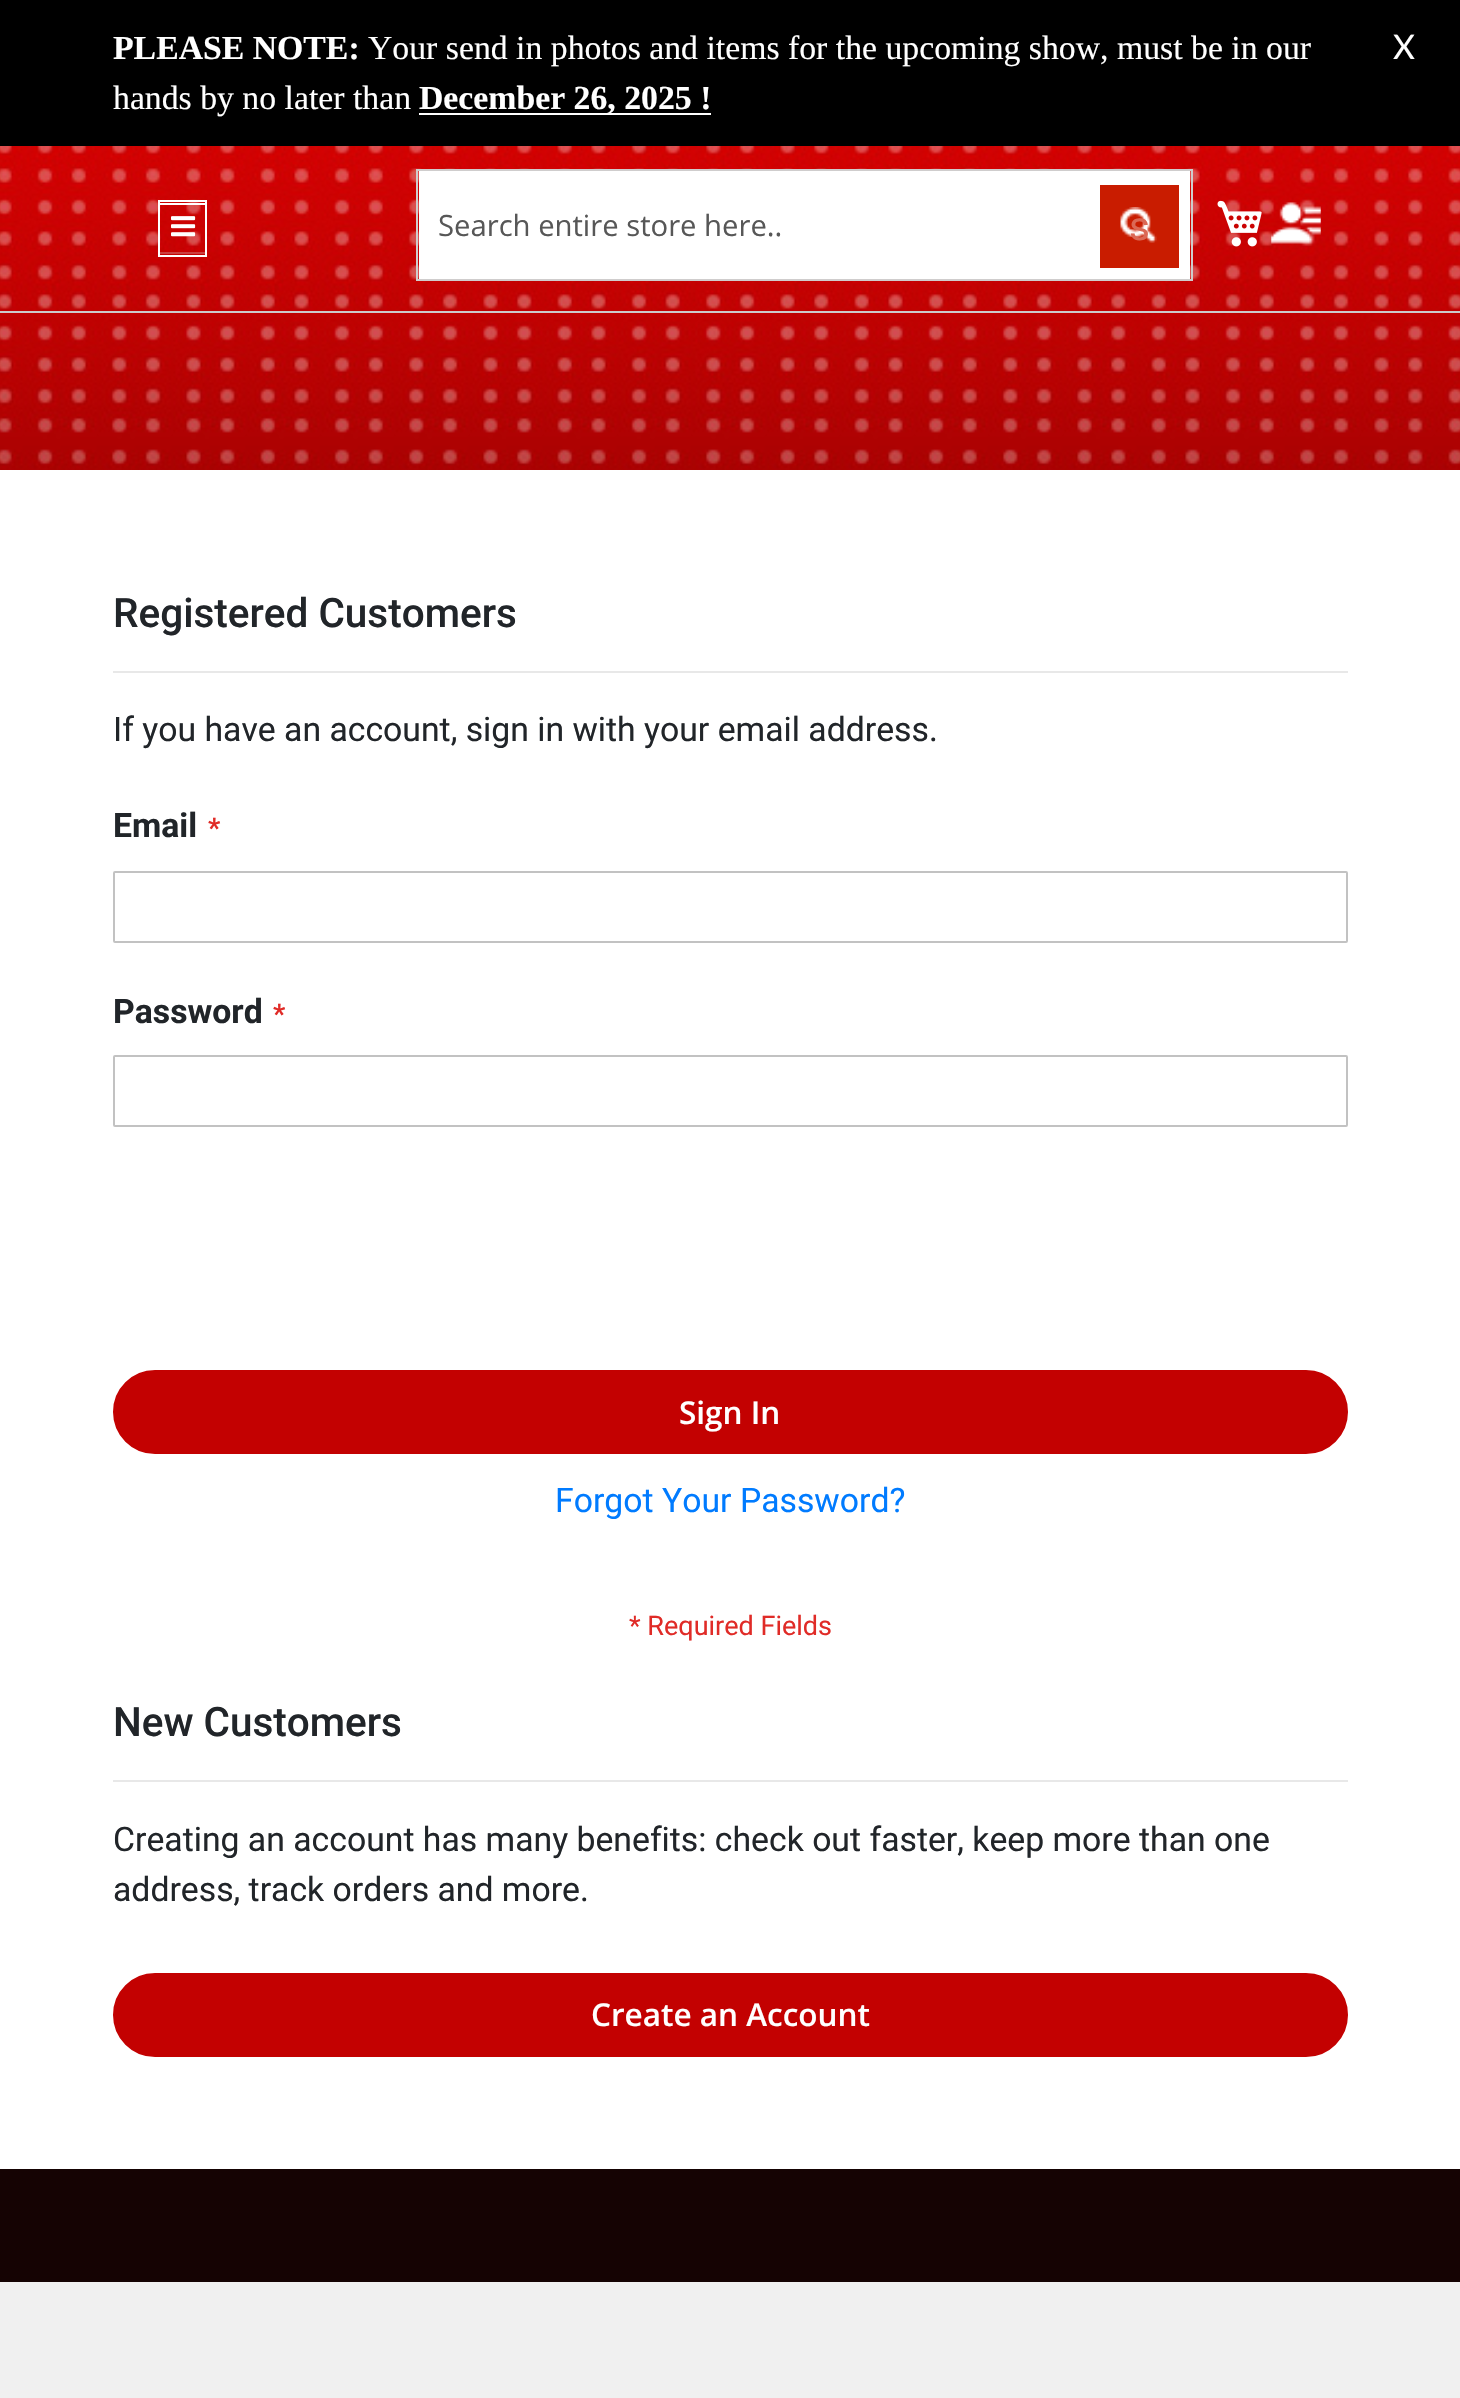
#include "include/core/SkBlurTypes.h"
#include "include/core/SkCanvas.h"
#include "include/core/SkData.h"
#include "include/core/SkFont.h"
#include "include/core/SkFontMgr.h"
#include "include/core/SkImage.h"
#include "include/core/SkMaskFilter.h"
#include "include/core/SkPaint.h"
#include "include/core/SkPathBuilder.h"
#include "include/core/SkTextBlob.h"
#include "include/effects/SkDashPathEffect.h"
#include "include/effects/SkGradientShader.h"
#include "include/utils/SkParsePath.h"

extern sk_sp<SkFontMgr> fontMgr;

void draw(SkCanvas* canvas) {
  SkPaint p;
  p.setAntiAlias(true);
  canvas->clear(SkColorSetRGB(21, 3, 3));
  canvas->drawImageRect(SkImages::DeferredFromEncodedData(SkData::MakeFromFileName("images/1.png")), SkRect::MakeLTRB(0, 146, 1460, 470), SkSamplingOptions());
  p.setColor(SkColorSetRGB(204, 204, 204));
  canvas->drawRect(SkRect::MakeLTRB(0, 311, 1460, 313), p);
  p.setColor(SK_ColorBLACK);
  canvas->drawRect(SkRect::MakeLTRB(0, 0, 1460, 146), p);
  p.setColor(SK_ColorWHITE);
  canvas->drawRect(SkRect::MakeLTRB(419, 113, 711, 115), p);
  p.setColor(SkColorSetARGB(77, 204, 204, 204));
  canvas->drawRect(SkRect::MakeLTRB(160, 252, 205, 254), p);
  p.setColor(SK_ColorWHITE);
  canvas->drawRect(SkRect::MakeLTRB(160, 203, 205, 205), p);
  p.setStyle(SkPaint::kStroke_Style);
  p.setStrokeWidth(2);
  canvas->drawRect(SkRect::MakeLTRB(159, 201, 206, 256), p);
  canvas->drawImageRect(SkImages::DeferredFromEncodedData(SkData::MakeFromFileName("images/2.png")), SkRect::MakeLTRB(171, 216, 196, 237), SkSamplingOptions());
  p.setStyle(SkPaint::kFill_Style);
  canvas->drawRect(SkRect::MakeLTRB(419, 171, 1190, 279), p);
  p.setStyle(SkPaint::kStroke_Style);
  p.setColor(SkColorSetRGB(207, 205, 205));
  canvas->drawRect(SkRect::MakeLTRB(417, 170, 1192, 280), p);
  p.setStyle(SkPaint::kFill_Style);
  p.setColor(SkColorSetRGB(201, 28, 0));
  canvas->drawRect(SkRect::MakeLTRB(1100, 185, 1179, 268), p);
  canvas->drawImageRect(SkImages::DeferredFromEncodedData(SkData::MakeFromFileName("images/3.png")), SkRect::MakeLTRB(1120, 207, 1157, 243), SkSamplingOptions());
  canvas->drawImageRect(SkImages::DeferredFromEncodedData(SkData::MakeFromFileName("images/4.png")), SkRect::MakeLTRB(1217, 200, 1262, 247), SkSamplingOptions());
  canvas->drawImageRect(SkImages::DeferredFromEncodedData(SkData::MakeFromFileName("images/5.png")), SkRect::MakeLTRB(1271, 202, 1321, 244), SkSamplingOptions());
  p.setColor(SK_ColorWHITE);
  canvas->drawRect(SkRect::MakeLTRB(0, 470, 1460, 2169), p);
  p.setColor(SkColorSetRGB(232, 232, 232));
  canvas->drawRect(SkRect::MakeLTRB(113, 671, 1348, 673), p);
  p.setStyle(SkPaint::kStroke_Style);
  p.setColor(SkColorSetRGB(194, 194, 194));
  canvas->drawRoundRect(SkRect::MakeLTRB(114, 872, 1347, 942), 1, 1, p);
  canvas->drawRoundRect(SkRect::MakeLTRB(114, 1056, 1347, 1126), 1, 1, p);
  p.setStyle(SkPaint::kFill_Style);
  p.setColor(SkColorSetRGB(195, 1, 1));
  canvas->drawRoundRect(SkRect::MakeLTRB(114, 1371, 1347, 1453), 41, 41, p);
  p.setStyle(SkPaint::kStroke_Style);
  canvas->drawRoundRect(SkRect::MakeLTRB(114, 1371, 1347, 1453), 41, 41, p);
  p.setStyle(SkPaint::kFill_Style);
  p.setColor(SkColorSetRGB(232, 232, 232));
  canvas->drawRect(SkRect::MakeLTRB(113, 1780, 1348, 1782), p);
  p.setColor(SkColorSetRGB(195, 1, 1));
  canvas->drawRoundRect(SkRect::MakeLTRB(114, 1974, 1347, 2056), 41, 41, p);
  p.setStyle(SkPaint::kStroke_Style);
  canvas->drawRoundRect(SkRect::MakeLTRB(114, 1974, 1347, 2056), 41, 41, p);
  p.setStyle(SkPaint::kFill_Style);
  p.setColor(SkColorSetRGB(240, 240, 240));
  canvas->drawRect(SkRect::MakeLTRB(0, 2282, 1460, 2398), p);
  SkFont font1(fontMgr->matchFamilyStyle("Liberation Serif", SkFontStyle::Bold()), 33.75f);
  font1.setSubpixel(true);
  p.setColor(SK_ColorWHITE);
  canvas->drawString("PLEASE NOTE:", 113, 59, font1, p);
  SkFont font2(fontMgr->matchFamilyStyle("Liberation Serif", SkFontStyle::Normal()), 33.75f);
  font2.setSubpixel(true);
  canvas->drawString("Your send in photos and items for the upcoming show, must be in our", 368, 59, font2, p);
  canvas->drawString("hands by no later than", 113, 109, font2, p);
  canvas->drawString("December 26, 2025 !", 419, 109, font1, p);
  SkFont font3(fontMgr->matchFamilyStyle("Lato", SkFontStyle::Normal()), 33.75f);
  font3.setSubpixel(true);
  canvas->drawString("X", 1393, 59, font3, p);
  SkFont font4(fontMgr->matchFamilyStyle("Open Sans", SkFontStyle::Normal()), 29.25f);
  font4.setSubpixel(true);
  p.setColor(SkColorSetRGB(87, 87, 87));
  canvas->drawString("Search entire store here..", 438, 236, font4, p);
  SkFont font5(fontMgr->matchFamilyStyle("Roboto", SkFontStyle::Normal()), 40.5f);
  font5.setSubpixel(true);
  p.setColor(SkColorSetRGB(219, 104, 85));
  canvas->drawString("s", 1129, 240, font5, p);
  SkFont font6(fontMgr->matchFamilyStyle("Roboto", SkFontStyle(500, SkFontStyle::kNormal_Width, SkFontStyle::kUpright_Slant)), 40.5f);
  font6.setSubpixel(true);
  p.setColor(SkColorSetRGB(33, 37, 41));
  canvas->drawString("Registered Customers", 113, 627, font6, p);
  SkFont font7(fontMgr->matchFamilyStyle("Roboto", SkFontStyle::Normal()), 33.75f);
  font7.setSubpixel(true);
  canvas->drawString("If you have an account, sign in with your email address.", 113, 741, font7, p);
  SkFont font8(fontMgr->matchFamilyStyle("Roboto", SkFontStyle::Bold()), 33.75f);
  font8.setSubpixel(true);
  canvas->drawString("Email", 113, 837, font8, p);
  SkFont font9(fontMgr->matchFamilyStyle("Roboto", SkFontStyle::Bold()), 27);
  font9.setSubpixel(true);
  p.setColor(SkColorSetRGB(224, 43, 39));
  canvas->drawString("*", 208, 837, font9, p);
  p.setColor(SkColorSetRGB(33, 37, 41));
  canvas->drawString("Password", 113, 1023, font8, p);
  p.setColor(SkColorSetRGB(224, 43, 39));
  canvas->drawString("*", 273, 1023, font9, p);
  SkFont font10(fontMgr->matchFamilyStyle("Open Sans", SkFontStyle(600, SkFontStyle::kNormal_Width, SkFontStyle::kUpright_Slant)), 31.5f);
  font10.setSubpixel(true);
  p.setColor(SK_ColorWHITE);
  canvas->drawString("Sign In", 679, 1424, font10, p);
  p.setColor(SkColorSetRGB(0, 123, 255));
  canvas->drawString("Forgot Your Password?", 555, 1512, font7, p);
  SkFont font11(fontMgr->matchFamilyStyle("Roboto", SkFontStyle::Normal()), 27);
  font11.setSubpixel(true);
  p.setColor(SkColorSetRGB(224, 43, 39));
  canvas->drawString("* Required Fields", 629, 1635, font11, p);
  p.setColor(SkColorSetRGB(33, 37, 41));
  canvas->drawString("New Customers", 113, 1736, font6, p);
  canvas->drawString("Creating an account has many benefits: check out faster, keep more than one", 113, 1851, font7, p);
  canvas->drawString("address, track orders and more.", 113, 1901, font7, p);
  p.setColor(SK_ColorWHITE);
  canvas->drawString("Create an Account", 591, 2026, font10, p);
}
